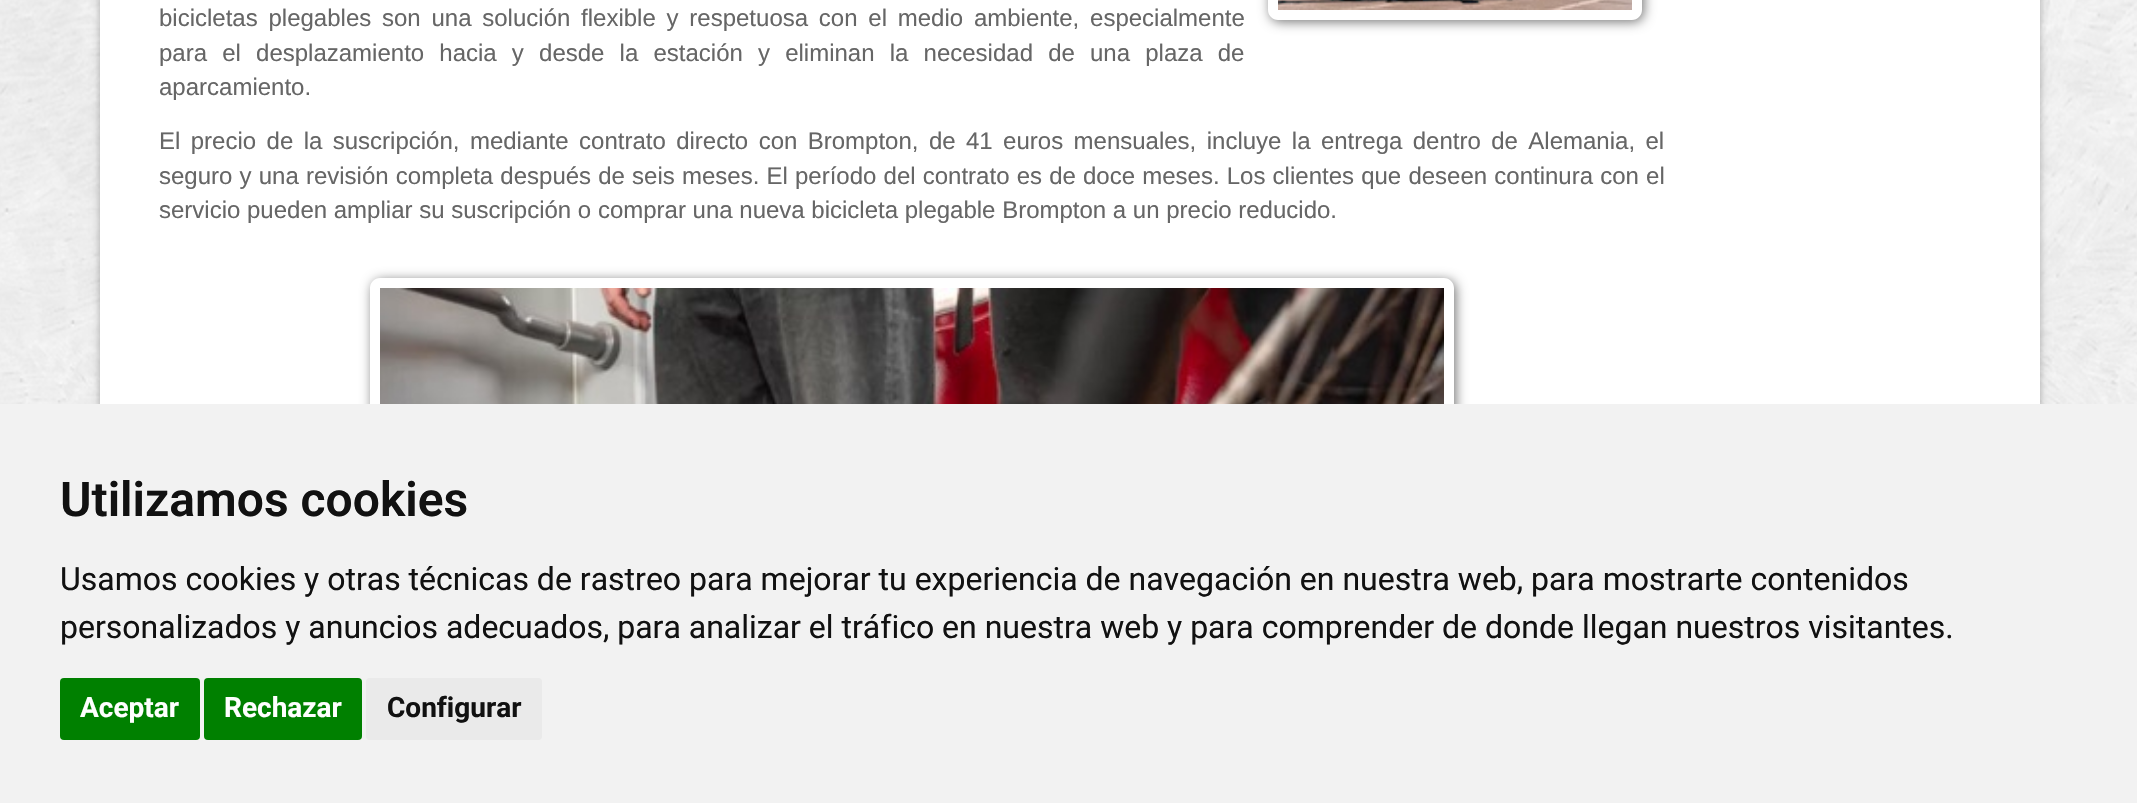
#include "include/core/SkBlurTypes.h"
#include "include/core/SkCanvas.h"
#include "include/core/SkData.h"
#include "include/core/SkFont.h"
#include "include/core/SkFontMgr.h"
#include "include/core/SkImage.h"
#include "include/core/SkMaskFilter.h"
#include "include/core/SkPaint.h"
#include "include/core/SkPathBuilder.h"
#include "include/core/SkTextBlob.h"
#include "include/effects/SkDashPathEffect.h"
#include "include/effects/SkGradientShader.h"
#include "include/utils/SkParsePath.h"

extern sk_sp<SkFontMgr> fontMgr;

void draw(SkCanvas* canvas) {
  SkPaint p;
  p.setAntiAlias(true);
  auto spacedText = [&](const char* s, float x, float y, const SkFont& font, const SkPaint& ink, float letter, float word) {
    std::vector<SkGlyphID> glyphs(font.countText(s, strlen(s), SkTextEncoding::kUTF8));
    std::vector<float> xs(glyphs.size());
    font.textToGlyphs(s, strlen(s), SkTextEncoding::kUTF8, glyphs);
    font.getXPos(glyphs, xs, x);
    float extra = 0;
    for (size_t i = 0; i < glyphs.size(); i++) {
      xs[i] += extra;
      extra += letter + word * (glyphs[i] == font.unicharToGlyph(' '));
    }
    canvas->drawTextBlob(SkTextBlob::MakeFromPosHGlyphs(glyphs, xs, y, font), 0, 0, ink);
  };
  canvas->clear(SK_ColorWHITE);
  canvas->drawImageRect(SkImages::DeferredFromEncodedData(SkData::MakeFromFileName("images/1.png")), SkRect::MakeLTRB(0, 0, 2137, 404), SkSamplingOptions());
  p.setColor(SkColorSetARGB(77, 0, 0, 0));
  p.setMaskFilter(SkMaskFilter::MakeBlur(kNormal_SkBlurStyle, 4));
  canvas->drawRect(SkRect::MakeLTRB(100, -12, 2040, 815), p);
  p.setMaskFilter(nullptr);
  p.setColor(SK_ColorWHITE);
  canvas->drawRect(SkRect::MakeLTRB(100, 0, 2040, 404), p);
  canvas->save();
  canvas->clipPath(SkPathBuilder(SkPathFillType::kEvenOdd).moveTo(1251, 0).lineTo(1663, 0).lineTo(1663, 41).lineTo(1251, 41).close().moveTo(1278, -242).lineTo(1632, -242).cubicTo(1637.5f, -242, 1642, -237.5f, 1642, -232).lineTo(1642, 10).cubicTo(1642, 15.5f, 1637.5f, 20, 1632, 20).lineTo(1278, 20).cubicTo(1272.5f, 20, 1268, 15.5f, 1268, 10).lineTo(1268, -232).cubicTo(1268, -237.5f, 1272.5f, -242, 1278, -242).close().detach(), true);
  p.setColor(SkColorSetRGB(119, 119, 119));
  p.setMaskFilter(SkMaskFilter::MakeBlur(kNormal_SkBlurStyle, 6));
  canvas->drawRoundRect(SkRect::MakeLTRB(1270, -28, 1644, 22), 10, 10, p);
  p.setMaskFilter(nullptr);
  canvas->restore();
  canvas->drawImageRect(SkImages::DeferredFromEncodedData(SkData::MakeFromFileName("images/2.png")), SkRect::MakeLTRB(1278, 0, 1632, 10), SkSamplingOptions());
  canvas->save();
  canvas->clipPath(SkPathBuilder(SkPathFillType::kEvenOdd).moveTo(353, 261).lineTo(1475, 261).lineTo(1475, 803).lineTo(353, 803).close().moveTo(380, 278).lineTo(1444, 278).cubicTo(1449.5f, 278, 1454, 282.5f, 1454, 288).lineTo(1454, 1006).cubicTo(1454, 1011.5f, 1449.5f, 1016, 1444, 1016).lineTo(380, 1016).cubicTo(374.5f, 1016, 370, 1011.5f, 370, 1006).lineTo(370, 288).cubicTo(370, 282.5f, 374.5f, 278, 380, 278).close().detach(), true);
  p.setMaskFilter(SkMaskFilter::MakeBlur(kNormal_SkBlurStyle, 6));
  canvas->drawRoundRect(SkRect::MakeLTRB(372, 280, 1456, 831), 10, 10, p);
  p.setMaskFilter(nullptr);
  canvas->restore();
  canvas->drawImageRect(SkImages::DeferredFromEncodedData(SkData::MakeFromFileName("images/3.png")), SkRect::MakeLTRB(380, 288, 1444, 404), SkSamplingOptions());
  p.setColor(SkColorSetRGB(242, 242, 242));
  canvas->drawRect(SkRect::MakeLTRB(0, 404, 2137, 803), p);
  p.setColor(SkColorSetRGB(0, 128, 0));
  canvas->drawRoundRect(SkRect::MakeLTRB(60, 678, 200, 740), 4, 4, p);
  canvas->drawRoundRect(SkRect::MakeLTRB(204, 678, 362, 740), 4, 4, p);
  p.setColor(SkColorSetRGB(234, 234, 234));
  canvas->drawRoundRect(SkRect::MakeLTRB(366, 678, 542, 740), 4, 4, p);
  SkFont font1(fontMgr->matchFamilyStyle("Liberation Sans", SkFontStyle::Normal()), 24);
  font1.setSubpixel(true);
  p.setColor(SkColorSetRGB(102, 102, 102));
  spacedText("bicicletas plegables son una solución flexible y respetuosa con el medio ambiente, especialmente", 159, 26, font1, p, 0, 4.1f);
  spacedText("para el desplazamiento hacia y desde la estación y eliminan la necesidad de una plaza de", 159, 61, font1, p, 0, 8.5f);
  canvas->drawString("aparcamiento.", 159, 95, font1, p);
  spacedText("El precio de la suscripción, mediante contrato directo con Brompton, de 41 euros mensuales, incluye la entrega dentro de Alemania, el", 159, 149, font1, p, 0, 3.75f);
  spacedText("seguro y una revisión completa después de seis meses. El período del contrato es de doce meses. Los clientes que deseen continura con el", 159, 184, font1, p, 0, 0.5f);
  canvas->drawString("servicio pueden ampliar su suscripción o comprar una nueva bicicleta plegable Brompton a un precio reducido.", 159, 218, font1, p);
  SkFont font2(fontMgr->matchFamilyStyle("Roboto", SkFontStyle(600, SkFontStyle::kNormal_Width, SkFontStyle::kUpright_Slant)), 48);
  font2.setSubpixel(true);
  p.setColor(SkColorSetRGB(17, 17, 17));
  canvas->drawString("Utilizamos cookies", 60, 516, font2, p);
  SkFont font3(fontMgr->matchFamilyStyle("Roboto", SkFontStyle::Normal()), 32);
  font3.setSubpixel(true);
  canvas->drawString("Usamos cookies y otras técnicas de rastreo para mejorar tu experiencia de navegación en nuestra web, para mostrarte contenidos", 60, 590, font3, p);
  canvas->drawString("personalizados y anuncios adecuados, para analizar el tráfico en nuestra web y para comprender de donde llegan nuestros visitantes.", 60, 638, font3, p);
  SkFont font4(fontMgr->matchFamilyStyle("Roboto", SkFontStyle::Bold()), 28);
  font4.setSubpixel(true);
  p.setColor(SK_ColorWHITE);
  canvas->drawString("Aceptar", 80, 717, font4, p);
  canvas->drawString("Rechazar", 224, 717, font4, p);
  p.setColor(SkColorSetRGB(17, 17, 17));
  canvas->drawString("Configurar", 387, 717, font4, p);
}
